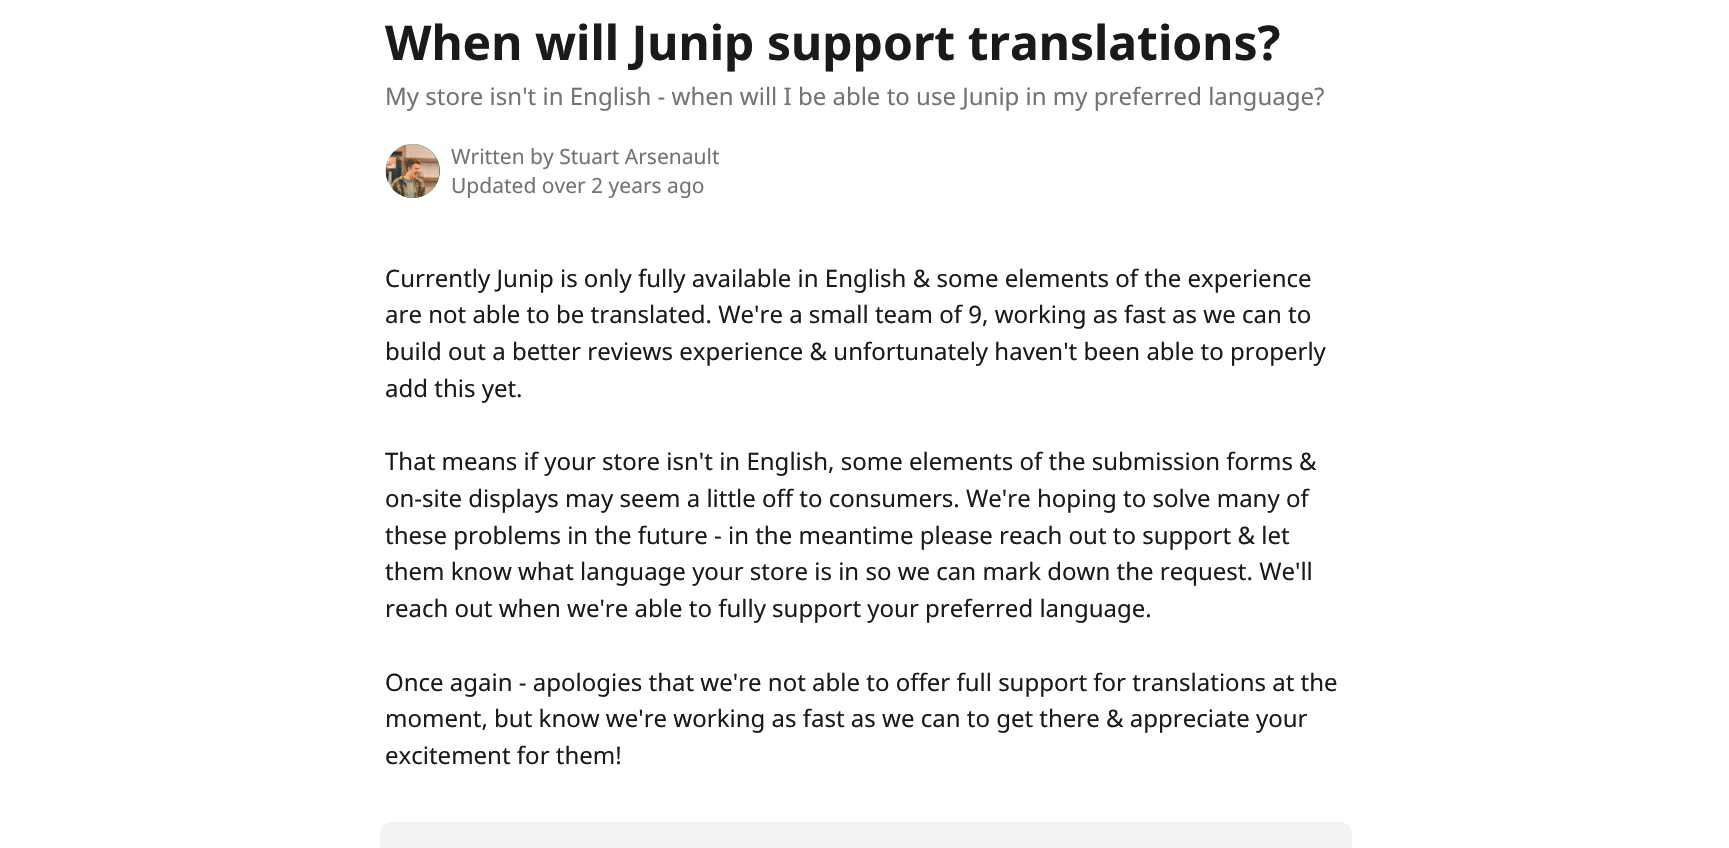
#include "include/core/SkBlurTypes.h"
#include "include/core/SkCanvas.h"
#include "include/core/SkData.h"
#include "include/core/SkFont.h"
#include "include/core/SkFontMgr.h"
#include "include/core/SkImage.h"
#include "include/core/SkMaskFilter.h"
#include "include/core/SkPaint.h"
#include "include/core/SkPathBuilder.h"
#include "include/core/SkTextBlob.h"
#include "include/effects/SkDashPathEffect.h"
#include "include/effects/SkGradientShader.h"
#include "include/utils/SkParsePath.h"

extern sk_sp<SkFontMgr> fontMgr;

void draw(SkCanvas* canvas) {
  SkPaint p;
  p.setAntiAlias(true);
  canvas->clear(SK_ColorWHITE);
  p.setColor(SkColorSetRGB(20, 133, 77));
  canvas->drawCircle(413, 171, 27, p);
  canvas->drawImageRect(SkImages::DeferredFromEncodedData(SkData::MakeFromFileName("images/1.png")), SkRect::MakeLTRB(385, 144, 440, 198), SkSamplingOptions());
  p.setColor(SkColorSetRGB(242, 242, 242));
  canvas->drawRoundRect(SkRect::MakeLTRB(380, 822, 1352, 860), 12, 12, p);
  SkFont font1(fontMgr->matchFamilyStyle("Noto Sans", SkFontStyle::Bold()), 48);
  font1.setSubpixel(true);
  p.setColor(SkColorSetRGB(26, 26, 26));
  canvas->drawString("When will Junip support translations?", 385, 60, font1, p);
  SkFont font2(fontMgr->matchFamilyStyle("Noto Sans", SkFontStyle::Normal()), 24);
  font2.setSubpixel(true);
  p.setColor(SkColorSetRGB(115, 115, 115));
  canvas->drawString("My store isn't in English - when will I be able to use Junip in my preferred language?", 385, 105, font2, p);
  SkFont font3(fontMgr->matchFamilyStyle("Noto Sans", SkFontStyle::Normal()), 21);
  font3.setSubpixel(true);
  canvas->drawString("Written by Stuart Arsenault", 451, 164, font3, p);
  canvas->drawString("Updated over 2 years ago", 451, 193, font3, p);
  p.setColor(SkColorSetRGB(26, 26, 26));
  canvas->drawString("Currently Junip is only fully available in English & some elements of the experience", 385, 287, font2, p);
  canvas->drawString("are not able to be translated. We're a small team of 9, working as fast as we can to", 385, 323, font2, p);
  canvas->drawString("build out a better reviews experience & unfortunately haven't been able to properly", 385, 360, font2, p);
  canvas->drawString("add this yet.", 385, 397, font2, p);
  canvas->drawString("That means if your store isn't in English, some elements of the submission forms &", 385, 470, font2, p);
  canvas->drawString("on-site displays may seem a little off to consumers. We're hoping to solve many of", 385, 507, font2, p);
  canvas->drawString("these problems in the future - in the meantime please reach out to support & let", 385, 544, font2, p);
  canvas->drawString("them know what language your store is in so we can mark down the request. We'll", 385, 580, font2, p);
  canvas->drawString("reach out when we're able to fully support your preferred language.", 385, 617, font2, p);
  canvas->drawString("Once again - apologies that we're not able to offer full support for translations at the", 385, 691, font2, p);
  canvas->drawString("moment, but know we're working as fast as we can to get there & appreciate your", 385, 727, font2, p);
  canvas->drawString("excitement for them!", 385, 764, font2, p);
}
